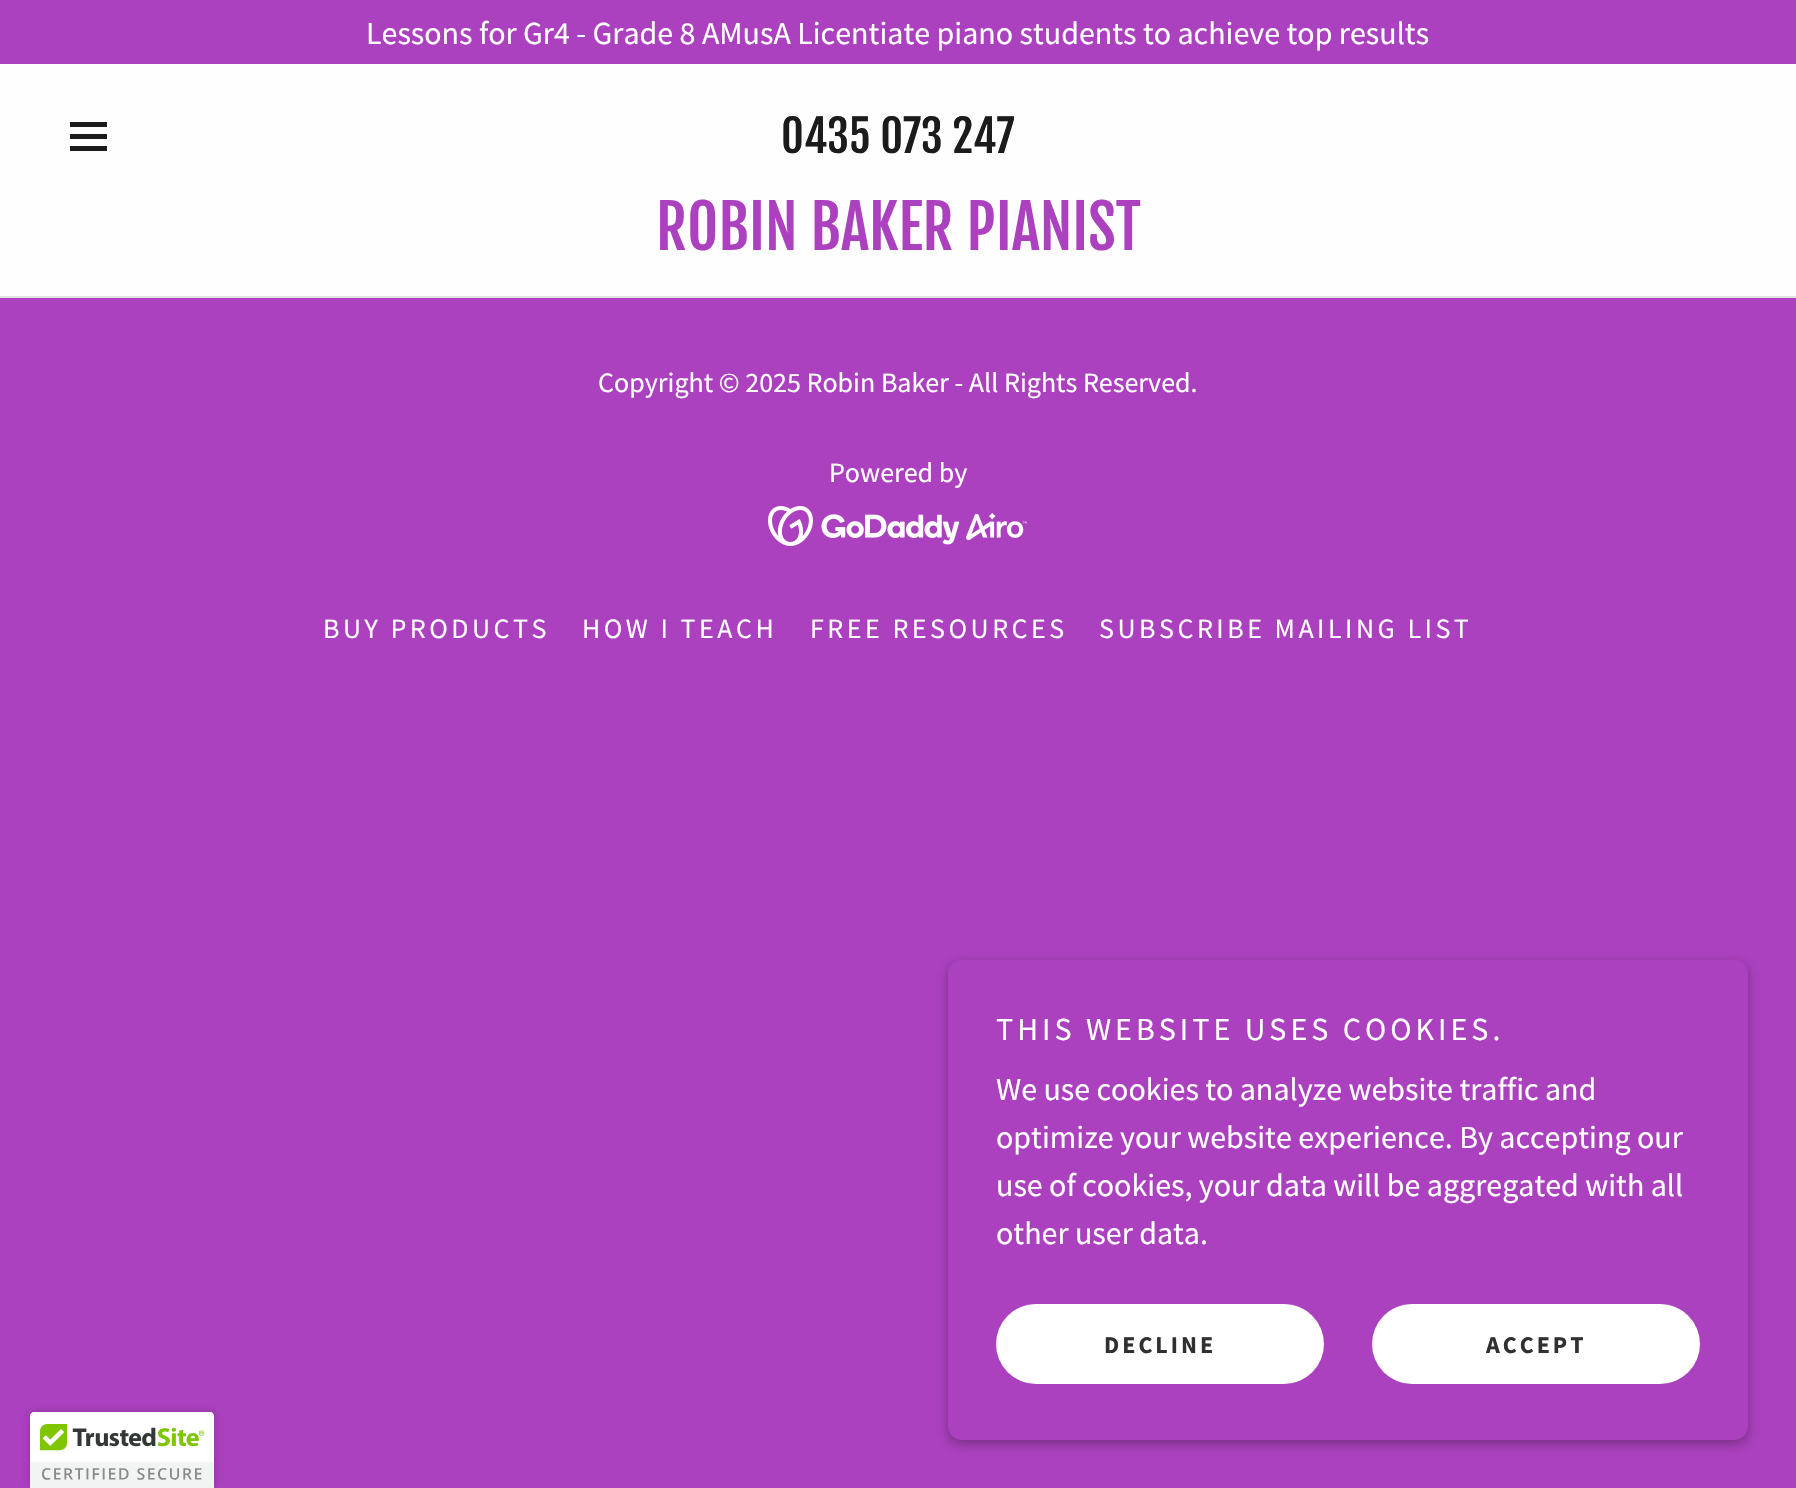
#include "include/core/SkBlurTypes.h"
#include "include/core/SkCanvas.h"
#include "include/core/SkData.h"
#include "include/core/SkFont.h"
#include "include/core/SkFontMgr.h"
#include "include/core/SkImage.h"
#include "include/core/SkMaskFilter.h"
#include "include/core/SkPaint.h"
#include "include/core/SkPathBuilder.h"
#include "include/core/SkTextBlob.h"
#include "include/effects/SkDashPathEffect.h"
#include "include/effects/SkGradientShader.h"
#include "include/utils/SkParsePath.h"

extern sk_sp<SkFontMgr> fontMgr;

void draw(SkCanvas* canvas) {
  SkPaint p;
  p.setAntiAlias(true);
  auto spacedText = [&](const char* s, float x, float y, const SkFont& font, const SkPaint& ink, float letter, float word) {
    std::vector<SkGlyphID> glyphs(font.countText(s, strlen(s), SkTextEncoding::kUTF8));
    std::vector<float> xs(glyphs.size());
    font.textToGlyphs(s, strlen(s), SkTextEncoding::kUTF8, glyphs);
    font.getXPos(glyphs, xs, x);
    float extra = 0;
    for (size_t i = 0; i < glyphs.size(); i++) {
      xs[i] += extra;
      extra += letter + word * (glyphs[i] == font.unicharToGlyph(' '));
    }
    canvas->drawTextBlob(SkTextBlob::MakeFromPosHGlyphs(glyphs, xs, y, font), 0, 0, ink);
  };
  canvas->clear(SkColorSetRGB(171, 65, 191));
  p.setColor(SkColorSetRGB(254, 254, 254));
  canvas->drawRect(SkRect::MakeLTRB(0, 64, 1796, 296), p);
  p.setColor(SkColorSetRGB(27, 27, 27));
  canvas->drawRect(SkRect::MakeLTRB(70, 122, 107, 127), p);
  canvas->drawRect(SkRect::MakeLTRB(70, 134, 107, 139), p);
  canvas->drawRect(SkRect::MakeLTRB(70, 146, 107, 151), p);
  p.setColor(SkColorSetRGB(226, 226, 226));
  canvas->drawRect(SkRect::MakeLTRB(0, 296, 1796, 298), p);
  canvas->drawImageRect(SkImages::DeferredFromEncodedData(SkData::MakeFromFileName("images/1.png")), SkRect::MakeLTRB(768, 506, 1027, 546), SkSamplingOptions());
  p.setColor(SkColorSetARGB(77, 0, 0, 0));
  p.setMaskFilter(SkMaskFilter::MakeBlur(kNormal_SkBlurStyle, 6));
  canvas->drawRoundRect(SkRect::MakeLTRB(948, 964, 1748, 1444), 14, 14, p);
  p.setMaskFilter(nullptr);
  p.setColor(SkColorSetRGB(171, 65, 191));
  canvas->drawRoundRect(SkRect::MakeLTRB(948, 960, 1748, 1440), 14, 14, p);
  p.setColor(SK_ColorWHITE);
  canvas->drawRoundRect(SkRect::MakeLTRB(996, 1304, 1324, 1384), 40, 40, p);
  canvas->drawRoundRect(SkRect::MakeLTRB(1372, 1304, 1700, 1384), 40, 40, p);
  p.setColor(SkColorSetARGB(51, 0, 0, 0));
  p.setMaskFilter(SkMaskFilter::MakeBlur(kNormal_SkBlurStyle, 5));
  canvas->drawRoundRect(SkRect::MakeLTRB(30, 1412, 214, 1488), 4, 4, p);
  p.setMaskFilter(nullptr);
  p.setColor(SK_ColorWHITE);
  canvas->drawPath(SkPathBuilder().moveTo(34, 1412).lineTo(210, 1412).cubicTo(212, 1412, 214, 1414, 214, 1416).lineTo(214, 1488).lineTo(30, 1488).lineTo(30, 1416).cubicTo(30, 1414, 32, 1412, 34, 1412).close().detach(), p);
  canvas->drawImageRect(SkImages::DeferredFromEncodedData(SkData::MakeFromFileName("images/2.png")), SkRect::MakeLTRB(30, 1412, 214, 1488), SkSamplingOptions());
  SkFont font1(fontMgr->matchFamilyStyle("Source Sans Pro", SkFontStyle::Normal()), 32);
  font1.setSubpixel(true);
  canvas->drawString("Lessons for Gr4 - Grade 8 AMusA Licentiate piano students to achieve top results", 366, 44, font1, p);
  SkFont font2(fontMgr->matchFamilyStyle("Fjalla One", SkFontStyle::Normal()), 44);
  font2.setSubpixel(true);
  p.setColor(SkColorSetRGB(27, 27, 27));
  canvas->drawString("0435 073 247", 781, 153, font2, p);
  SkFont font3(fontMgr->matchFamilyStyle("Fjalla One", SkFontStyle::Normal()), 60);
  font3.setSubpixel(true);
  p.setColor(SkColorSetRGB(171, 65, 191));
  canvas->drawString("ROBIN BAKER PIANIST", 656, 250, font3, p);
  SkFont font4(fontMgr->matchFamilyStyle("Source Sans Pro", SkFontStyle::Normal()), 28);
  font4.setSubpixel(true);
  p.setColor(SK_ColorWHITE);
  canvas->drawString("Copyright © 2025 Robin Baker - All Rights Reserved.", 598, 392, font4, p);
  canvas->drawString("Powered by", 829, 482, font4, p);
  spacedText("BUY PRODUCTS", 323, 638, font4, p, 3.5f, 0);
  spacedText("HOW I TEACH", 582, 638, font4, p, 3.5f, 0);
  spacedText("FREE RESOURCES", 810, 638, font4, p, 3.5f, 0);
  spacedText("SUBSCRIBE MAILING LIST", 1099, 638, font4, p, 3.5f, 0);
  spacedText("THIS WEBSITE USES COOKIES.", 996, 1040, font1, p, 4, 0);
  canvas->drawString("We use cookies to analyze website traffic and", 996, 1100, font1, p);
  canvas->drawString("optimize your website experience. By accepting our", 996, 1148, font1, p);
  canvas->drawString("use of cookies, your data will be aggregated with all", 996, 1196, font1, p);
  canvas->drawString("other user data.", 996, 1244, font1, p);
  SkFont font5(fontMgr->matchFamilyStyle("Source Sans Pro", SkFontStyle::Bold()), 24);
  font5.setSubpixel(true);
  p.setColor(SkColorSetRGB(48, 48, 48));
  spacedText("DECLINE", 1104, 1353, font5, p, 3, 0);
  spacedText("ACCEPT", 1486, 1353, font5, p, 3, 0);
}
